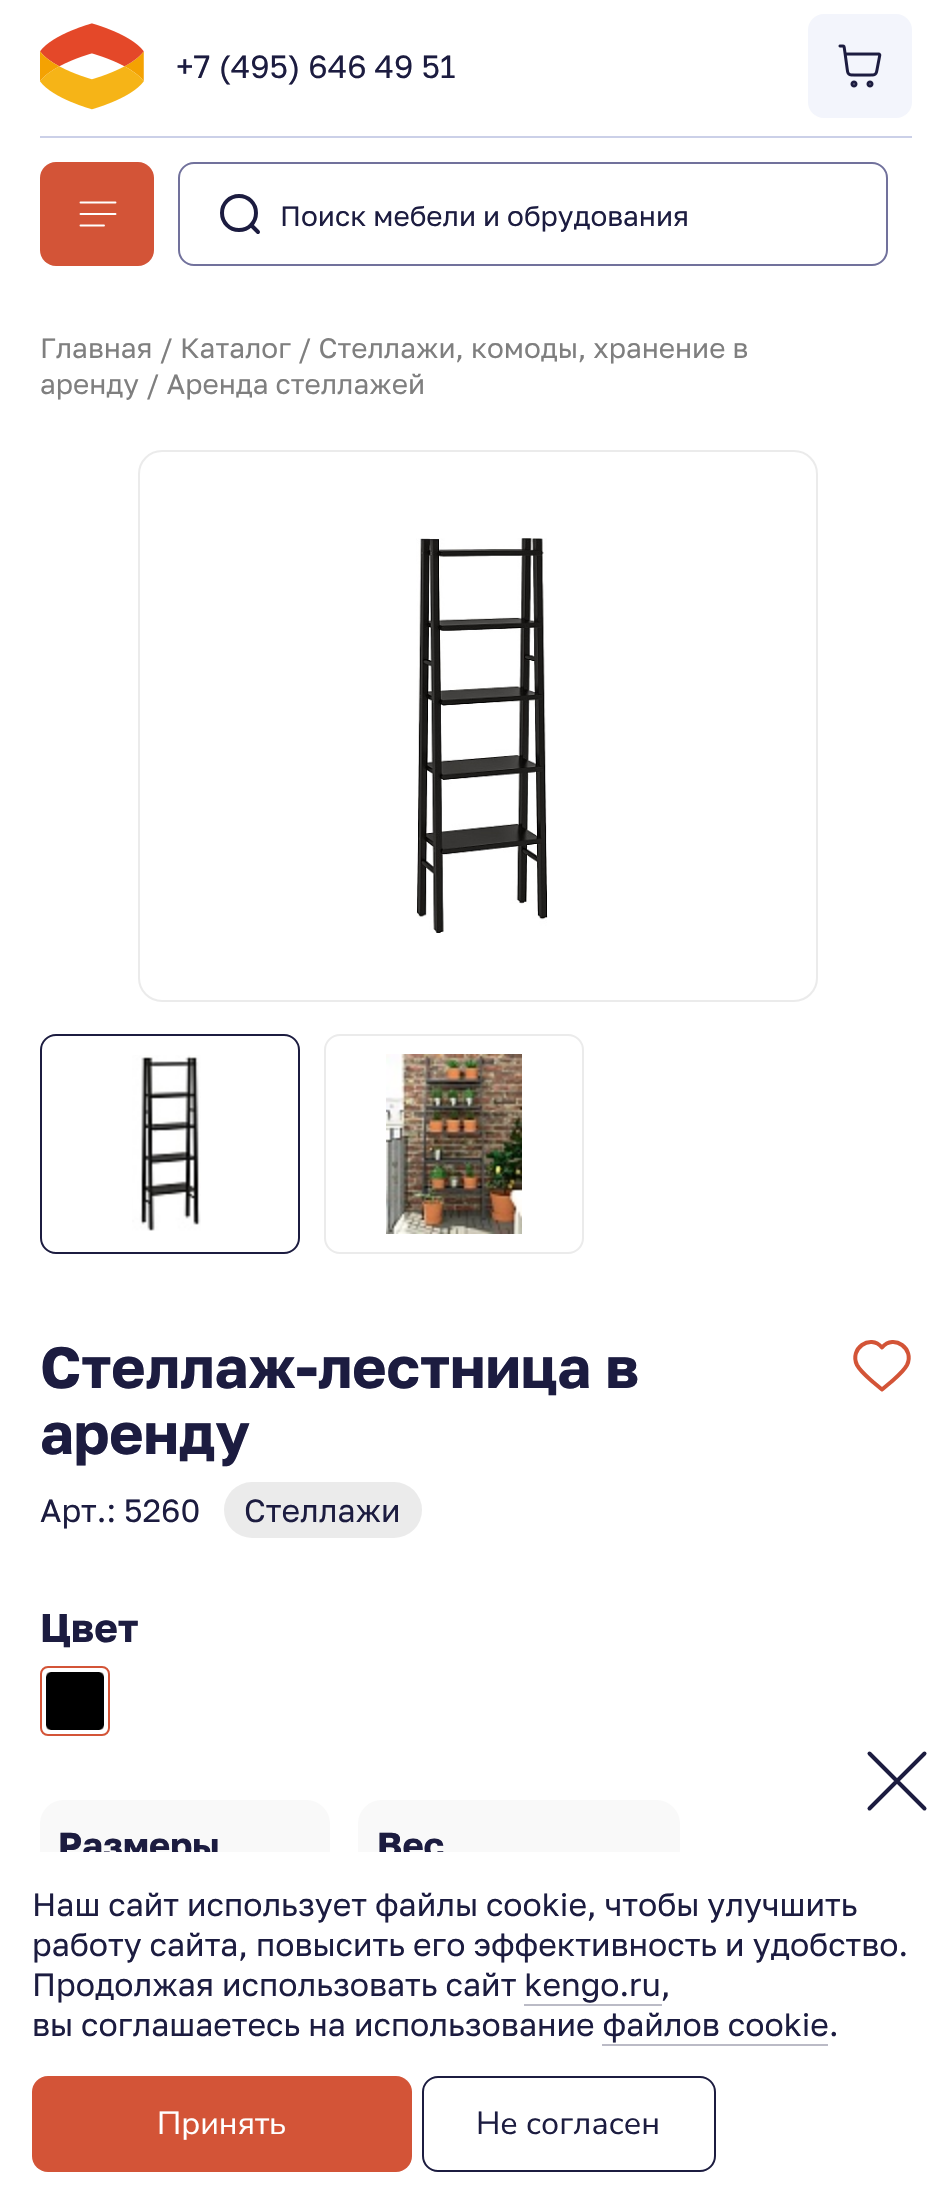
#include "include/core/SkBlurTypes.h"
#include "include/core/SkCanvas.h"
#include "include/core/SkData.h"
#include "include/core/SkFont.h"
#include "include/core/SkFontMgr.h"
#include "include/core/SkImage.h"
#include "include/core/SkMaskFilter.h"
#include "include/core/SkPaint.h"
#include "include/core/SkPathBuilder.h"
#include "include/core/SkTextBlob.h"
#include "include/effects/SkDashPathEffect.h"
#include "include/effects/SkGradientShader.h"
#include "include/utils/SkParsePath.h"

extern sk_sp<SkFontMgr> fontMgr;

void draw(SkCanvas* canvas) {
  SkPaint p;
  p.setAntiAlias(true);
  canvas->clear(SK_ColorWHITE);
  p.setColor(SkColorSetRGB(203, 208, 232));
  canvas->drawRect(SkRect::MakeLTRB(40, 136, 912, 138), p);
  canvas->drawImageRect(SkImages::DeferredFromEncodedData(SkData::MakeFromFileName("images/1.png")), SkRect::MakeLTRB(40, 23, 144, 110), SkSamplingOptions());
  p.setColor(SkColorSetRGB(243, 245, 252));
  canvas->drawRoundRect(SkRect::MakeLTRB(808, 14, 912, 118), 16, 16, p);
  canvas->drawImageRect(SkImages::DeferredFromEncodedData(SkData::MakeFromFileName("images/2.png")), SkRect::MakeLTRB(838, 44, 882, 88), SkSamplingOptions());
  p.setColor(SkColorSetRGB(211, 84, 55));
  canvas->drawRoundRect(SkRect::MakeLTRB(40, 162, 154, 266), 16, 16, p);
  p.setStyle(SkPaint::kStroke_Style);
  p.setStrokeWidth(1.9f);
  p.setStrokeCap(SkPaint::kRound_Cap);
  p.setStrokeJoin(SkPaint::kRound_Join);
  p.setColor(SK_ColorWHITE);
  canvas->drawPath(SkPathBuilder().moveTo(80.5f, 214).lineTo(115.5f, 214).moveTo(80.5f, 202.5f).lineTo(115.5f, 202.5f).moveTo(80.5f, 225.5f).lineTo(104, 225.5f).detach(), p);
  p.setStrokeWidth(2);
  p.setStrokeCap(SkPaint::kButt_Cap);
  p.setStrokeJoin(SkPaint::kMiter_Join);
  p.setColor(SkColorSetRGB(113, 113, 156));
  canvas->drawRoundRect(SkRect::MakeLTRB(179, 163, 887, 265), 15, 15, p);
  p.setStrokeWidth(4);
  p.setStrokeCap(SkPaint::kRound_Cap);
  p.setStrokeJoin(SkPaint::kRound_Join);
  p.setColor(SkColorSetRGB(28, 28, 64));
  canvas->drawPath(SkPathBuilder().moveTo(258, 232).lineTo(251, 225).moveTo(256, 213).cubicTo(256, 222.5f, 248.5f, 230, 239, 230).cubicTo(229.5f, 230, 222, 222.5f, 222, 213).cubicTo(222, 203.5f, 229.5f, 196, 239, 196).cubicTo(248.5f, 196, 256, 203.5f, 256, 213).close().detach(), p);
  p.setStrokeWidth(2);
  p.setStrokeCap(SkPaint::kButt_Cap);
  p.setStrokeJoin(SkPaint::kMiter_Join);
  p.setColor(SkColorSetRGB(235, 235, 235));
  canvas->drawRoundRect(SkRect::MakeLTRB(139, 451, 817, 1001), 23, 23, p);
  canvas->drawImageRect(SkImages::DeferredFromEncodedData(SkData::MakeFromFileName("images/3.png")), SkRect::MakeLTRB(416, 538, 548, 933), SkSamplingOptions());
  p.setColor(SkColorSetRGB(28, 28, 64));
  canvas->drawRoundRect(SkRect::MakeLTRB(41, 1035, 299, 1253), 15, 15, p);
  canvas->drawImageRect(SkImages::DeferredFromEncodedData(SkData::MakeFromFileName("images/4.png")), SkRect::MakeLTRB(132, 1055, 201, 1231), SkSamplingOptions());
  p.setColor(SkColorSetRGB(235, 235, 235));
  canvas->drawRoundRect(SkRect::MakeLTRB(325, 1035, 583, 1253), 15, 15, p);
  canvas->drawImageRect(SkImages::DeferredFromEncodedData(SkData::MakeFromFileName("images/5.png")), SkRect::MakeLTRB(386, 1054, 522, 1234), SkSamplingOptions());
  p.setStrokeWidth(4);
  p.setStrokeCap(SkPaint::kRound_Cap);
  p.setStrokeJoin(SkPaint::kRound_Join);
  p.setColor(SkColorSetRGB(211, 84, 55));
  canvas->drawPath(SkPathBuilder().moveTo(882, 1347.5f).cubicTo(870, 1333.5f, 849, 1349, 857, 1365).cubicTo(860.5f, 1371.5f, 867.5f, 1377, 873, 1382).lineTo(882, 1389.5f).lineTo(891, 1382).cubicTo(896.5f, 1377, 903.5f, 1371.5f, 907, 1365).cubicTo(915, 1349, 894, 1333.5f, 882, 1347.5f).close().detach(), p);
  p.setStyle(SkPaint::kFill_Style);
  p.setColor(SkColorSetRGB(235, 235, 235));
  canvas->drawRoundRect(SkRect::MakeLTRB(224, 1482, 422, 1538), 28, 28, p);
  p.setStyle(SkPaint::kStroke_Style);
  p.setStrokeWidth(2);
  p.setStrokeCap(SkPaint::kButt_Cap);
  p.setStrokeJoin(SkPaint::kMiter_Join);
  p.setColor(SkColorSetRGB(211, 84, 55));
  canvas->drawRoundRect(SkRect::MakeLTRB(41, 1667, 109, 1735), 7, 7, p);
  p.setStyle(SkPaint::kFill_Style);
  p.setColor(SkColorSetRGB(188, 178, 170));
  canvas->drawRoundRect(SkRect::MakeLTRB(46, 1672, 104, 1730), 4, 4, p);
  canvas->drawImageRect(SkImages::DeferredFromEncodedData(SkData::MakeFromFileName("images/6.png")), SkRect::MakeLTRB(46, 1672, 104, 1730), SkSamplingOptions());
  p.setColor(SkColorSetRGB(249, 249, 249));
  canvas->drawRoundRect(SkRect::MakeLTRB(40, 1800, 330, 2064), 24, 24, p);
  canvas->drawRoundRect(SkRect::MakeLTRB(358, 1800, 680, 2064), 24, 24, p);
  p.setStyle(SkPaint::kStroke_Style);
  p.setStrokeWidth(4);
  p.setStrokeCap(SkPaint::kRound_Cap);
  p.setStrokeJoin(SkPaint::kRound_Join);
  p.setColor(SkColorSetRGB(28, 28, 64));
  canvas->drawPath(SkPathBuilder().moveTo(924.5f, 1753.5f).lineTo(869.5f, 1808.5f).moveTo(869.5f, 1753.5f).lineTo(924.5f, 1808.5f).detach(), p);
  SkFont font1(fontMgr->matchFamilyStyle("Golos Text", SkFontStyle::Normal()), 32);
  font1.setSubpixel(true);
  p.setStyle(SkPaint::kFill_Style);
  canvas->drawString("+7 (495) 646 49 51", 176, 78, font1, p);
  SkFont font2(fontMgr->matchFamilyStyle("Golos Text", SkFontStyle::Normal()), 28);
  font2.setSubpixel(true);
  canvas->drawString("Поиск мебели и обрудования", 280, 226, font2, p);
  p.setColor(SkColorSetRGB(127, 127, 127));
  canvas->drawString("Главная / Каталог / Стеллажи, комоды, хранение в", 40, 358, font2, p);
  canvas->drawString("аренду / Аренда стеллажей", 40, 394, font2, p);
  SkFont font3(fontMgr->matchFamilyStyle("Golos Text", SkFontStyle::Bold()), 58);
  font3.setSubpixel(true);
  p.setColor(SkColorSetRGB(28, 28, 64));
  canvas->drawString("Стеллаж-лестница в", 40, 1388, font3, p);
  canvas->drawString("аренду", 40, 1454, font3, p);
  canvas->drawString("Арт.: 5260", 40, 1522, font1, p);
  canvas->drawString("Стеллажи", 244, 1522, font1, p);
  SkFont font4(fontMgr->matchFamilyStyle("Golos Text", SkFontStyle::Bold()), 40);
  font4.setSubpixel(true);
  canvas->drawString("Цвет", 40, 1642, font4, p);
  SkFont font5(fontMgr->matchFamilyStyle("Golos Text", SkFontStyle::Bold()), 36);
  font5.setSubpixel(true);
  canvas->drawString("Размеры", 58, 1858, font5, p);
  canvas->drawString("Вес", 377, 1858, font5, p);
  p.setColor(SK_ColorWHITE);
  canvas->drawRoundRect(SkRect::MakeLTRB(0, 1852, 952, 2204), 16, 16, p);
  p.setColor(SkColorSetRGB(28, 28, 64));
  canvas->drawString("Наш сайт использует файлы cookie, чтобы улучшить", 32, 1916, font1, p);
  canvas->drawString("работу сайта, повысить его эффективность и удобство.", 32, 1956, font1, p);
  canvas->drawString("Продолжая использовать сайт kengo.ru,", 32, 1996, font1, p);
  p.setColor(SkColorSetRGB(187, 187, 198));
  canvas->drawRect(SkRect::MakeLTRB(524, 2004, 662, 2006), p);
  p.setColor(SkColorSetRGB(28, 28, 64));
  canvas->drawString("вы соглашаетесь на использование файлов cookie.", 32, 2036, font1, p);
  p.setColor(SkColorSetRGB(187, 187, 198));
  canvas->drawRect(SkRect::MakeLTRB(602, 2044, 828, 2046), p);
  p.setColor(SkColorSetRGB(211, 84, 55));
  canvas->drawRoundRect(SkRect::MakeLTRB(32, 2076, 412, 2172), 16, 16, p);
  SkFont font6(fontMgr->matchFamilyStyle("Nunito Sans", SkFontStyle::Normal()), 32);
  font6.setSubpixel(true);
  p.setColor(SK_ColorWHITE);
  canvas->drawString("Принять", 157, 2134, font6, p);
  p.setStyle(SkPaint::kStroke_Style);
  p.setStrokeWidth(2);
  p.setStrokeCap(SkPaint::kButt_Cap);
  p.setStrokeJoin(SkPaint::kMiter_Join);
  p.setColor(SkColorSetRGB(28, 28, 64));
  canvas->drawRoundRect(SkRect::MakeLTRB(423, 2077, 715, 2171), 15, 15, p);
  p.setStyle(SkPaint::kFill_Style);
  canvas->drawString("Не согласен", 476, 2134, font6, p);
}
